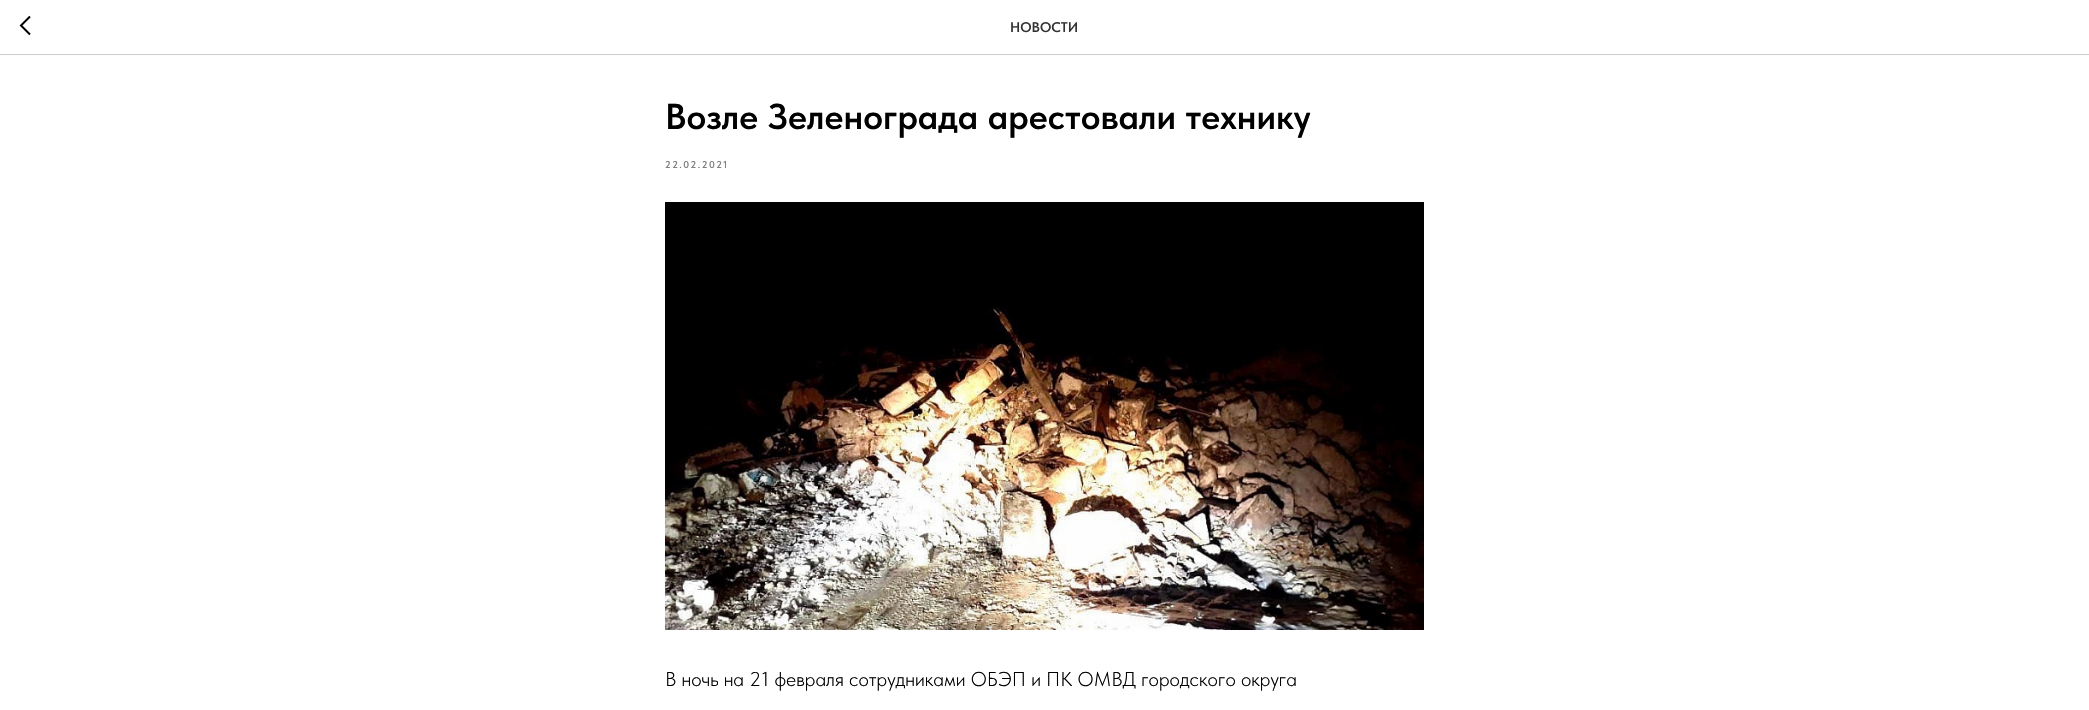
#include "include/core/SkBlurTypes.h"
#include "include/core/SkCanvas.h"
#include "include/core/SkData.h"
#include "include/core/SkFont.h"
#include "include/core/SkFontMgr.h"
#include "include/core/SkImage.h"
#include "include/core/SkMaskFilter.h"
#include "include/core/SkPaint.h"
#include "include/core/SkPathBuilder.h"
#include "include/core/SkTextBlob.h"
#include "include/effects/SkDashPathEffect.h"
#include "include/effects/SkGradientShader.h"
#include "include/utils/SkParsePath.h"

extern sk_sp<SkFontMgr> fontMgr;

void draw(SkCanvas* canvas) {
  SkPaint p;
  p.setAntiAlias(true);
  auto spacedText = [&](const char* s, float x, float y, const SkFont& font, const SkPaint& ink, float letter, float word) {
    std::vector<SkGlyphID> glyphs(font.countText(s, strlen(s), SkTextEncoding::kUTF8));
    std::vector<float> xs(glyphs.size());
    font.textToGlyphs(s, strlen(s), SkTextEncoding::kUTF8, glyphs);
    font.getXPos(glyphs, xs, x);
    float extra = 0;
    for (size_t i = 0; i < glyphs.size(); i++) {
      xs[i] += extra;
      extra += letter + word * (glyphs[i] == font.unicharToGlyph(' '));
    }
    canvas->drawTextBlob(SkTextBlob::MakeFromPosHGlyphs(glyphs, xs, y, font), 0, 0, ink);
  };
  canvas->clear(SK_ColorWHITE);
  p.setColor(SkColorSetRGB(204, 204, 204));
  canvas->drawRect(SkRect::MakeLTRB(0, 54, 2089, 55), p);
  p.setStyle(SkPaint::kStroke_Style);
  p.setStrokeWidth(2);
  p.setColor(SK_ColorBLACK);
  canvas->drawPath(SkPathBuilder().moveTo(30, 34.5f).lineTo(21, 25.5f).lineTo(30, 16.5f).detach(), p);
  canvas->drawImageRect(SkImages::DeferredFromEncodedData(SkData::MakeFromFileName("images/1.png")), SkRect::MakeLTRB(665, 202, 1424, 630), SkSamplingOptions());
  SkFont font1(fontMgr->matchFamilyStyle("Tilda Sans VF", SkFontStyle(600, SkFontStyle::kNormal_Width, SkFontStyle::kUpright_Slant)), 14);
  font1.setSubpixel(true);
  p.setStyle(SkPaint::kFill_Style);
  p.setColor(SkColorSetRGB(51, 51, 51));
  canvas->drawString("НОВОСТИ", 1010, 32, font1, p);
  SkFont font2(fontMgr->matchFamilyStyle("Tilda Sans VF", SkFontStyle(600, SkFontStyle::kNormal_Width, SkFontStyle::kUpright_Slant)), 36);
  font2.setSubpixel(true);
  p.setColor(SK_ColorBLACK);
  canvas->drawString("Возле Зеленограда арестовали технику", 665, 129, font2, p);
  SkFont font3(fontMgr->matchFamilyStyle("Tilda Sans VF", SkFontStyle(600, SkFontStyle::kNormal_Width, SkFontStyle::kUpright_Slant)), 10);
  font3.setSubpixel(true);
  p.setColor(SkColorSetRGB(128, 128, 128));
  spacedText("22.02.2021", 665, 168, font3, p, 1.5f, 0);
  SkFont font4(fontMgr->matchFamilyStyle("Tilda Sans VF", SkFontStyle(300, SkFontStyle::kNormal_Width, SkFontStyle::kUpright_Slant)), 20);
  font4.setSubpixel(true);
  p.setColor(SK_ColorBLACK);
  canvas->drawString("В ночь на 21 февраля сотрудниками ОБЭП и ПК ОМВД городского округа", 665, 686, font4, p);
}
